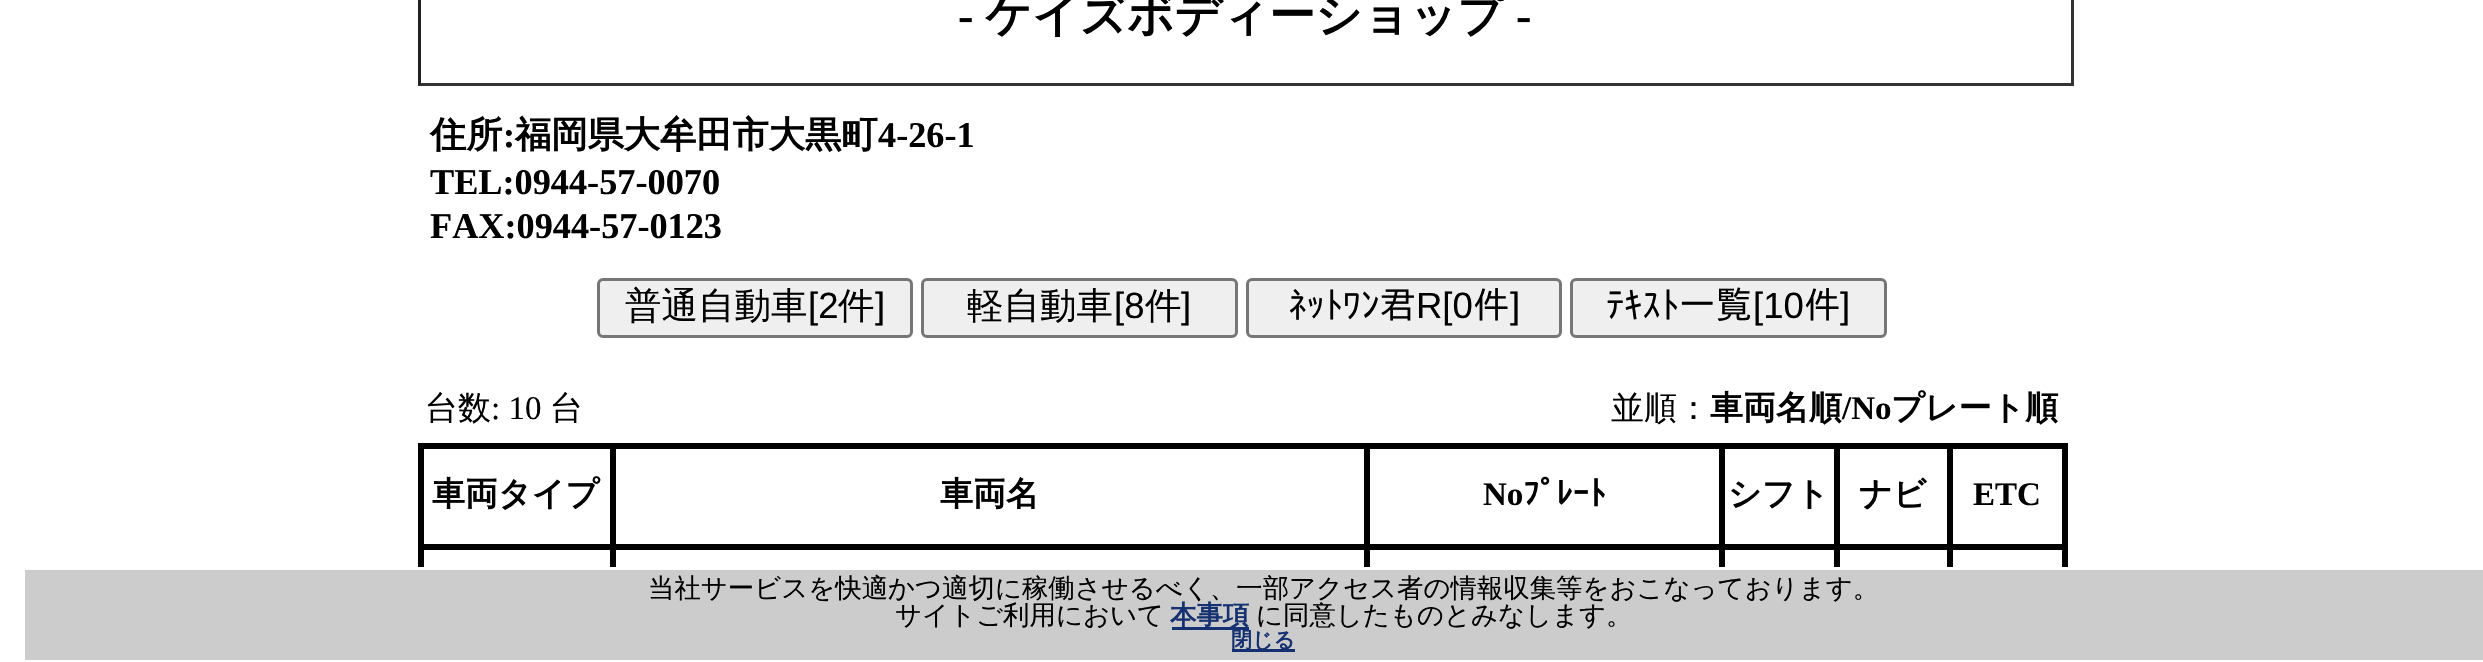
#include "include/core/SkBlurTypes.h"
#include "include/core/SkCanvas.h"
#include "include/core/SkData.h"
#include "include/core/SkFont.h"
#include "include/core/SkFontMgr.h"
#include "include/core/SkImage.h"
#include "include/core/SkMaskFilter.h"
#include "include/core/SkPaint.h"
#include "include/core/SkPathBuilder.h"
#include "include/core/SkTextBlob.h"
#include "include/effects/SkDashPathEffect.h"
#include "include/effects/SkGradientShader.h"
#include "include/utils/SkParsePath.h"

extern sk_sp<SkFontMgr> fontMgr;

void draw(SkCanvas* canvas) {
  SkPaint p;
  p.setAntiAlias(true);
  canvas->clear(SK_ColorWHITE);
  p.setColor(SkColorSetRGB(51, 51, 51));
  canvas->drawRect(SkRect::MakeLTRB(2071, 0, 2074, 85), p);
  canvas->drawRect(SkRect::MakeLTRB(418, 83, 2074, 86), p);
  p.setColor(SkColorSetRGB(34, 34, 34));
  canvas->drawRect(SkRect::MakeLTRB(418, 0, 421, 85), p);
  p.setColor(SkColorSetRGB(239, 239, 239));
  canvas->drawRoundRect(SkRect::MakeLTRB(598.5f, 279.5f, 911.5f, 336.5f), 4.5f, 4.5f, p);
  p.setStyle(SkPaint::kStroke_Style);
  p.setStrokeWidth(3);
  p.setColor(SkColorSetRGB(118, 118, 118));
  canvas->drawRoundRect(SkRect::MakeLTRB(598.5f, 279.5f, 911.5f, 336.5f), 4.5f, 4.5f, p);
  p.setStyle(SkPaint::kFill_Style);
  p.setColor(SkColorSetRGB(239, 239, 239));
  canvas->drawRoundRect(SkRect::MakeLTRB(922.5f, 279.5f, 1236.5f, 336.5f), 4.5f, 4.5f, p);
  p.setStyle(SkPaint::kStroke_Style);
  p.setColor(SkColorSetRGB(118, 118, 118));
  canvas->drawRoundRect(SkRect::MakeLTRB(922.5f, 279.5f, 1236.5f, 336.5f), 4.5f, 4.5f, p);
  p.setStyle(SkPaint::kFill_Style);
  p.setColor(SkColorSetRGB(239, 239, 239));
  canvas->drawRoundRect(SkRect::MakeLTRB(1247.5f, 279.5f, 1560.5f, 336.5f), 4.5f, 4.5f, p);
  p.setStyle(SkPaint::kStroke_Style);
  p.setColor(SkColorSetRGB(118, 118, 118));
  canvas->drawRoundRect(SkRect::MakeLTRB(1247.5f, 279.5f, 1560.5f, 336.5f), 4.5f, 4.5f, p);
  p.setStyle(SkPaint::kFill_Style);
  p.setColor(SkColorSetRGB(239, 239, 239));
  canvas->drawRoundRect(SkRect::MakeLTRB(1571.5f, 279.5f, 1885.5f, 336.5f), 4.5f, 4.5f, p);
  p.setStyle(SkPaint::kStroke_Style);
  p.setColor(SkColorSetRGB(118, 118, 118));
  canvas->drawRoundRect(SkRect::MakeLTRB(1571.5f, 279.5f, 1885.5f, 336.5f), 4.5f, 4.5f, p);
  p.setColor(SK_ColorBLACK);
  canvas->drawRect(SkRect::MakeLTRB(419.5f, 444.5f, 2066.5f, 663.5f), p);
  canvas->drawRect(SkRect::MakeLTRB(422.5f, 447.5f, 611.5f, 545.5f), p);
  canvas->drawRect(SkRect::MakeLTRB(614.5f, 447.5f, 1365.5f, 545.5f), p);
  canvas->drawRect(SkRect::MakeLTRB(1368.5f, 447.5f, 1720.5f, 545.5f), p);
  canvas->drawRect(SkRect::MakeLTRB(1723.5f, 447.5f, 1835.5f, 545.5f), p);
  canvas->drawRect(SkRect::MakeLTRB(1838.5f, 447.5f, 1948.5f, 545.5f), p);
  canvas->drawRect(SkRect::MakeLTRB(1951.5f, 447.5f, 2063.5f, 545.5f), p);
  canvas->drawRect(SkRect::MakeLTRB(422.5f, 548.5f, 611.5f, 647.5f), p);
  canvas->drawRect(SkRect::MakeLTRB(614.5f, 548.5f, 1365.5f, 647.5f), p);
  canvas->drawRect(SkRect::MakeLTRB(1368.5f, 548.5f, 1720.5f, 647.5f), p);
  canvas->drawRect(SkRect::MakeLTRB(1723.5f, 548.5f, 1835.5f, 647.5f), p);
  canvas->drawRect(SkRect::MakeLTRB(1838.5f, 548.5f, 1948.5f, 647.5f), p);
  canvas->drawRect(SkRect::MakeLTRB(1951.5f, 548.5f, 2063.5f, 647.5f), p);
  p.setStyle(SkPaint::kFill_Style);
  p.setColor(SkColorSetRGB(204, 204, 204));
  canvas->drawRect(SkRect::MakeLTRB(23.5f, 568.5f, 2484.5f, 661.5f), p);
  p.setStyle(SkPaint::kStroke_Style);
  p.setColor(SK_ColorWHITE);
  canvas->drawRect(SkRect::MakeLTRB(23.5f, 568.5f, 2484.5f, 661.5f), p);
  p.setStyle(SkPaint::kFill_Style);
  p.setColor(SkColorSetRGB(22, 49, 113));
  canvas->drawRect(SkRect::MakeLTRB(1172, 627, 1249, 630), p);
  canvas->drawRect(SkRect::MakeLTRB(1232, 649, 1295, 652), p);
  SkFont font1(fontMgr->matchFamilyStyle("Liberation Serif", SkFontStyle::Bold()), 46.25f);
  font1.setSubpixel(true);
  p.setColor(SK_ColorBLACK);
  canvas->drawString("-", 958, 31, font1, p);
  SkFont font2(fontMgr->matchFamilyStyle("WenQuanYi Zen Hei", SkFontStyle::Bold()), 46.25f);
  font2.setSubpixel(true);
  canvas->drawString("ケイズボディーショップ", 985, 31, font2, p);
  canvas->drawString("-", 1516, 31, font1, p);
  SkFont font3(fontMgr->matchFamilyStyle("WenQuanYi Zen Hei", SkFontStyle::Bold()), 36.25f);
  font3.setSubpixel(true);
  canvas->drawString("住所", 430, 147, font3, p);
  SkFont font4(fontMgr->matchFamilyStyle("Liberation Serif", SkFontStyle::Bold()), 36.25f);
  font4.setSubpixel(true);
  canvas->drawString(":", 503, 147, font4, p);
  canvas->drawString("福岡県大牟田市大黒町", 515, 147, font3, p);
  canvas->drawString("4-26-1", 878, 147, font4, p);
  canvas->drawString("TEL:0944-57-0070", 430, 194, font4, p);
  canvas->drawString("FAX:0944-57-0123", 430, 238, font4, p);
  SkFont font5(fontMgr->matchFamilyStyle("WenQuanYi Zen Hei", SkFontStyle(500, SkFontStyle::kNormal_Width, SkFontStyle::kUpright_Slant)), 36.5f);
  font5.setSubpixel(true);
  canvas->drawString("普通自動車", 625, 318, font5, p);
  SkFont font6(fontMgr->matchFamilyStyle("Liberation Sans", SkFontStyle::Normal()), 36.5f);
  font6.setSubpixel(true);
  canvas->drawString("[2", 808, 318, font6, p);
  canvas->drawString("件", 838, 318, font5, p);
  canvas->drawString("]", 875, 318, font6, p);
  canvas->drawString("軽自動車", 967, 318, font5, p);
  canvas->drawString("[8", 1114, 318, font6, p);
  canvas->drawString("件", 1145, 318, font5, p);
  canvas->drawString("]", 1181, 318, font6, p);
  SkFont font7(fontMgr->matchFamilyStyle("IPAGothic", SkFontStyle::Normal()), 36.5f);
  font7.setSubpixel(true);
  canvas->drawString("ﾈｯﾄﾜﾝ君", 1288, 318, font7, p);
  canvas->drawString("R[0", 1416, 318, font6, p);
  canvas->drawString("件", 1473, 318, font7, p);
  canvas->drawString("]", 1510, 318, font6, p);
  canvas->drawString("ﾃｷｽﾄ一覧", 1606, 318, font7, p);
  canvas->drawString("[10", 1753, 318, font6, p);
  canvas->drawString("件", 1804, 318, font7, p);
  canvas->drawString("]", 1840, 318, font6, p);
  SkFont font8(fontMgr->matchFamilyStyle("WenQuanYi Zen Hei", SkFontStyle(500, SkFontStyle::kNormal_Width, SkFontStyle::kUpright_Slant)), 33);
  font8.setSubpixel(true);
  canvas->drawString("台数", 425, 419, font8, p);
  SkFont font9(fontMgr->matchFamilyStyle("Liberation Serif", SkFontStyle::Normal()), 33);
  font9.setSubpixel(true);
  canvas->drawString(": 10", 491, 419, font9, p);
  canvas->drawString("台", 550, 419, font8, p);
  canvas->drawString("並順：", 1611, 419, font8, p);
  SkFont font10(fontMgr->matchFamilyStyle("WenQuanYi Zen Hei", SkFontStyle::Bold()), 33);
  font10.setSubpixel(true);
  canvas->drawString("車両名順", 1710, 419, font10, p);
  SkFont font11(fontMgr->matchFamilyStyle("Liberation Serif", SkFontStyle::Bold()), 33);
  font11.setSubpixel(true);
  canvas->drawString("/No", 1842, 419, font11, p);
  canvas->drawString("プレート順", 1891, 419, font10, p);
  canvas->drawString("車両タイプ", 432, 505, font10, p);
  canvas->drawString("車両名", 940, 505, font10, p);
  canvas->drawString("No", 1483, 505, font11, p);
  SkFont font12(fontMgr->matchFamilyStyle("IPAGothic", SkFontStyle::Bold()), 33);
  font12.setSubpixel(true);
  canvas->drawString("ﾌﾟﾚｰﾄ", 1523, 505, font12, p);
  canvas->drawString("シフト", 1728, 505, font10, p);
  canvas->drawString("ナビ", 1859, 505, font10, p);
  canvas->drawString("ETC", 1973, 505, font11, p);
  SkFont font13(fontMgr->matchFamilyStyle("WenQuanYi Zen Hei", SkFontStyle(500, SkFontStyle::kNormal_Width, SkFontStyle::kUpright_Slant)), 26.4f);
  font13.setSubpixel(true);
  canvas->drawString("当社サービスを快適かつ適切に稼働させるべく、一部アクセス者の情報収集等をおこなっております。", 648, 597, font13, p);
  canvas->drawString("サイトご利用において", 895, 624, font13, p);
  SkFont font14(fontMgr->matchFamilyStyle("WenQuanYi Zen Hei", SkFontStyle::Bold()), 26.4f);
  font14.setSubpixel(true);
  p.setColor(SkColorSetRGB(22, 49, 113));
  canvas->drawString("本事項", 1170, 624, font14, p);
  p.setColor(SK_ColorBLACK);
  canvas->drawString("に同意したものとみなします。", 1256, 624, font13, p);
  SkFont font15(fontMgr->matchFamilyStyle("WenQuanYi Zen Hei", SkFontStyle::Bold()), 21);
  font15.setSubpixel(true);
  p.setColor(SkColorSetRGB(22, 49, 113));
  canvas->drawString("閉じる", 1231, 647, font15, p);
}
